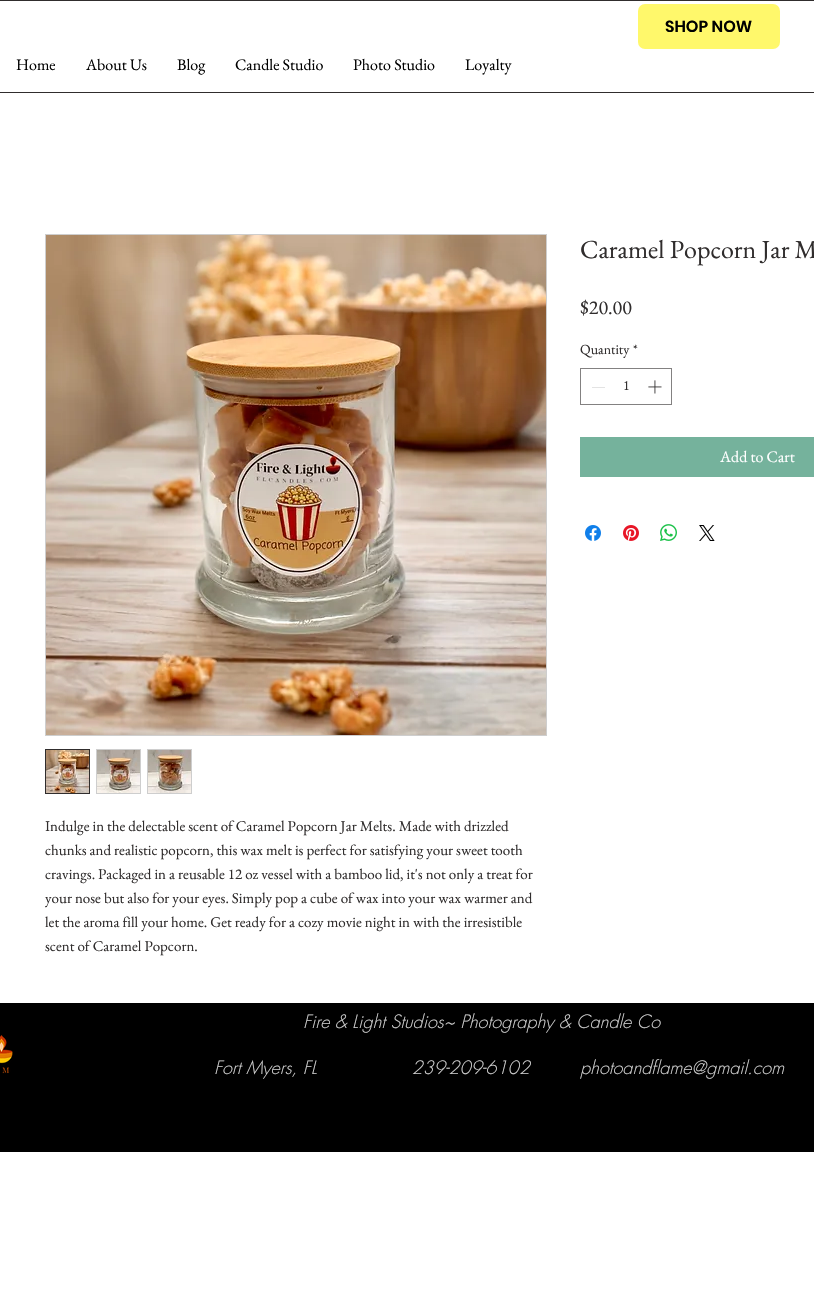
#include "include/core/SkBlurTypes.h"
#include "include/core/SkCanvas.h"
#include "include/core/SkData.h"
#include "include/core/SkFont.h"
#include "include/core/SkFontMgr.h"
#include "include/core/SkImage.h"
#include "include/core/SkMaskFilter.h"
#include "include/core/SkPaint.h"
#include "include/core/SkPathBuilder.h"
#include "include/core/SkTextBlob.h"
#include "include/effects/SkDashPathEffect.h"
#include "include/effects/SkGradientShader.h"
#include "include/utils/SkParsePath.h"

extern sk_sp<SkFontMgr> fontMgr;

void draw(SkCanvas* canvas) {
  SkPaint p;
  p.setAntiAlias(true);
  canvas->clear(SK_ColorWHITE);
  p.setColor(SkColorSetRGB(48, 45, 45));
  canvas->drawRect(SkRect::MakeLTRB(0, 0, 814, 1), p);
  canvas->drawRect(SkRect::MakeLTRB(0, 92, 814, 93), p);
  p.setColor(SkColorSetRGB(255, 248, 107));
  canvas->drawRoundRect(SkRect::MakeLTRB(638, 4, 780, 49), 7, 7, p);
  p.setStyle(SkPaint::kStroke_Style);
  p.setStrokeWidth(1);
  p.setColor(SkColorSetRGB(131, 129, 129));
  canvas->drawRect(SkRect::MakeLTRB(580.5f, 368.5f, 671.5f, 404.5f), p);
  p.setStyle(SkPaint::kFill_Style);
  p.setColor(SkColorSetRGB(227, 227, 227));
  canvas->drawRect(SkRect::MakeLTRB(592, 387, 605, 388), p);
  canvas->drawImageRect(SkImages::DeferredFromEncodedData(SkData::MakeFromFileName("images/1.png")), SkRect::MakeLTRB(648, 380, 662, 394), SkSamplingOptions());
  p.setColor(SkColorSetRGB(117, 178, 156));
  canvas->drawRect(SkRect::MakeLTRB(580, 437, 814, 477), p);
  canvas->drawImageRect(SkImages::DeferredFromEncodedData(SkData::MakeFromFileName("images/2.png")), SkRect::MakeLTRB(585, 525, 601, 541), SkSamplingOptions());
  canvas->drawImageRect(SkImages::DeferredFromEncodedData(SkData::MakeFromFileName("images/3.png")), SkRect::MakeLTRB(623, 525, 639, 541), SkSamplingOptions());
  canvas->drawImageRect(SkImages::DeferredFromEncodedData(SkData::MakeFromFileName("images/4.png")), SkRect::MakeLTRB(660, 524, 677, 541), SkSamplingOptions());
  canvas->drawImageRect(SkImages::DeferredFromEncodedData(SkData::MakeFromFileName("images/5.png")), SkRect::MakeLTRB(699, 525, 715, 541), SkSamplingOptions());
  p.setStyle(SkPaint::kStroke_Style);
  p.setColor(SkColorSetRGB(206, 206, 206));
  canvas->drawRect(SkRect::MakeLTRB(45.5f, 234.5f, 546.5f, 735.5f), p);
  canvas->drawImageRect(SkImages::DeferredFromEncodedData(SkData::MakeFromFileName("images/6.png")), SkRect::MakeLTRB(46, 235, 546, 735), SkSamplingOptions());
  p.setColor(SkColorSetRGB(48, 45, 45));
  canvas->drawRect(SkRect::MakeLTRB(45.5f, 749.5f, 89.5f, 793.5f), p);
  canvas->drawImageRect(SkImages::DeferredFromEncodedData(SkData::MakeFromFileName("images/7.png")), SkRect::MakeLTRB(46, 750, 89, 793), SkSamplingOptions());
  p.setStyle(SkPaint::kFill_Style);
  p.setColor(SkColorSetRGB(206, 206, 206));
  canvas->drawRect(SkRect::MakeLTRB(96, 749, 141, 794), p);
  canvas->drawImageRect(SkImages::DeferredFromEncodedData(SkData::MakeFromFileName("images/8.png")), SkRect::MakeLTRB(97, 750, 140, 793), SkSamplingOptions());
  canvas->drawRect(SkRect::MakeLTRB(147, 749, 192, 794), p);
  canvas->drawImageRect(SkImages::DeferredFromEncodedData(SkData::MakeFromFileName("images/9.png")), SkRect::MakeLTRB(148, 750, 191, 793), SkSamplingOptions());
  p.setColor(SK_ColorBLACK);
  canvas->drawRect(SkRect::MakeLTRB(0, 1003, 814, 1152), p);
  canvas->drawImageRect(SkImages::DeferredFromEncodedData(SkData::MakeFromFileName("images/10.png")), SkRect::MakeLTRB(0, 1035, 13, 1074), SkSamplingOptions());
  SkFont font1(fontMgr->matchFamilyStyle("Poppins", SkFontStyle(600, SkFontStyle::kNormal_Width, SkFontStyle::kUpright_Slant)), 16);
  font1.setSubpixel(true);
  canvas->drawString("SHOP NOW", 665, 32, font1, p);
  SkFont font2(fontMgr->matchFamilyStyle("EB Garamond", SkFontStyle::Normal()), 16);
  font2.setSubpixel(true);
  canvas->drawString("Home", 16, 70, font2, p);
  canvas->drawString("About Us", 86, 70, font2, p);
  canvas->drawString("Blog", 177, 70, font2, p);
  canvas->drawString("Candle Studio", 235, 70, font2, p);
  canvas->drawString("Photo Studio", 353, 70, font2, p);
  canvas->drawString("Loyalty", 465, 70, font2, p);
  SkFont font3(fontMgr->matchFamilyStyle("EB Garamond", SkFontStyle::Normal()), 26);
  font3.setSubpixel(true);
  p.setColor(SkColorSetRGB(48, 45, 45));
  canvas->drawString("Caramel Popcorn Jar M", 580, 258, font3, p);
  SkFont font4(fontMgr->matchFamilyStyle("EB Garamond", SkFontStyle::Normal()), 20);
  font4.setSubpixel(true);
  canvas->drawString("$20.00", 580, 314, font4, p);
  SkFont font5(fontMgr->matchFamilyStyle("EB Garamond", SkFontStyle::Normal()), 14);
  font5.setSubpixel(true);
  canvas->drawString("Quantity", 580, 354, font5, p);
  canvas->drawString("*", 633, 354, font5, p);
  canvas->drawString("1", 623, 390, font5, p);
  p.setColor(SK_ColorWHITE);
  canvas->drawString("Add to Cart", 720, 462, font2, p);
  SkFont font6(fontMgr->matchFamilyStyle("EB Garamond", SkFontStyle::Normal()), 15);
  font6.setSubpixel(true);
  p.setColor(SkColorSetRGB(48, 45, 45));
  canvas->drawString("Indulge in the delectable scent of Caramel Popcorn Jar Melts. Made with drizzled", 45, 831, font6, p);
  canvas->drawString("chunks and realistic popcorn, this wax melt is perfect for satisfying your sweet tooth", 45, 855, font6, p);
  canvas->drawString("cravings. Packaged in a reusable 12 oz vessel with a bamboo lid, it's not only a treat for", 45, 879, font6, p);
  canvas->drawString("your nose but also for your eyes. Simply pop a cube of wax into your wax warmer and", 45, 903, font6, p);
  canvas->drawString("let the aroma fill your home. Get ready for a cozy movie night in with the irresistible", 45, 927, font6, p);
  canvas->drawString("scent of Caramel Popcorn.", 45, 951, font6, p);
  SkFont font7(fontMgr->matchFamilyStyle("futura", SkFontStyle(300, SkFontStyle::kNormal_Width, SkFontStyle::kItalic_Slant)), 18);
  font7.setSubpixel(true);
  p.setColor(SkColorSetRGB(206, 206, 206));
  canvas->drawString("Fire & Light Studios~ Photography & Candle Co", 303, 1028, font7, p);
  canvas->drawString("Fort Myers, FL                 239-209-6102", 214, 1074, font7, p);
  canvas->drawString("photoandflame@gmail.com", 580, 1074, font7, p);
}
